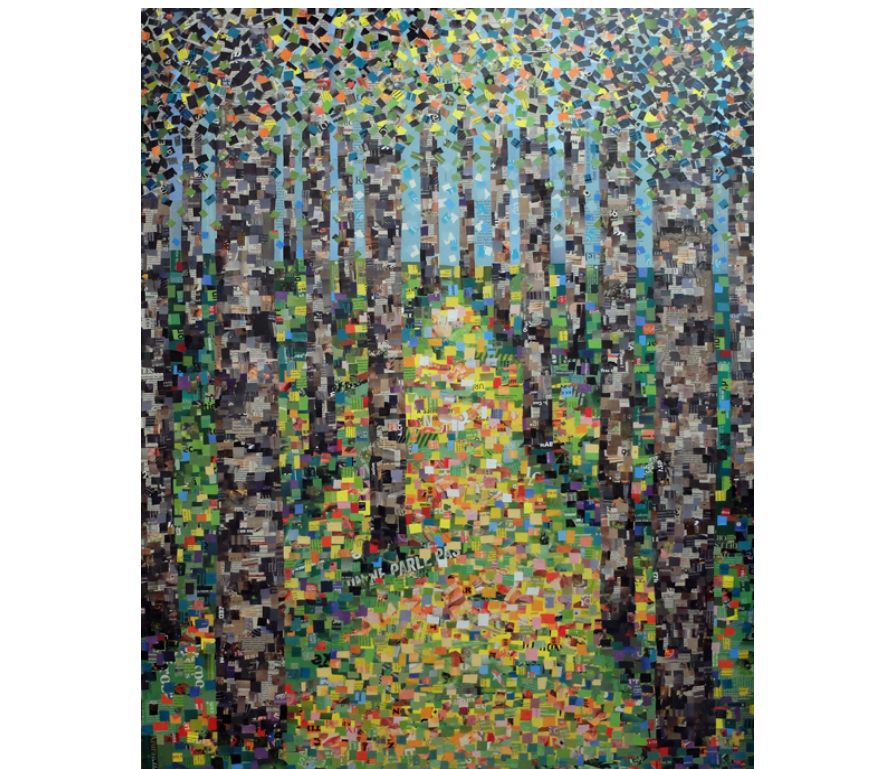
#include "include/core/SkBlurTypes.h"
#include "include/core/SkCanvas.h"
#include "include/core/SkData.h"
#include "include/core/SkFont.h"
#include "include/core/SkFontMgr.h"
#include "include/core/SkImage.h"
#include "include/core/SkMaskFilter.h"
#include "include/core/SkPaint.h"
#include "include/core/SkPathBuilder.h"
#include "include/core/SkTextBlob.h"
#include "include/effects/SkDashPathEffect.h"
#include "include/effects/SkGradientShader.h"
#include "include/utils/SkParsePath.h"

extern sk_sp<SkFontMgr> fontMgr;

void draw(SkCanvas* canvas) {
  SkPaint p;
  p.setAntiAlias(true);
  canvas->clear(SK_ColorWHITE);
  canvas->drawImageRect(SkImages::DeferredFromEncodedData(SkData::MakeFromFileName("images/1.png")), SkRect::MakeLTRB(141, 8, 754, 769), SkSamplingOptions());
}
